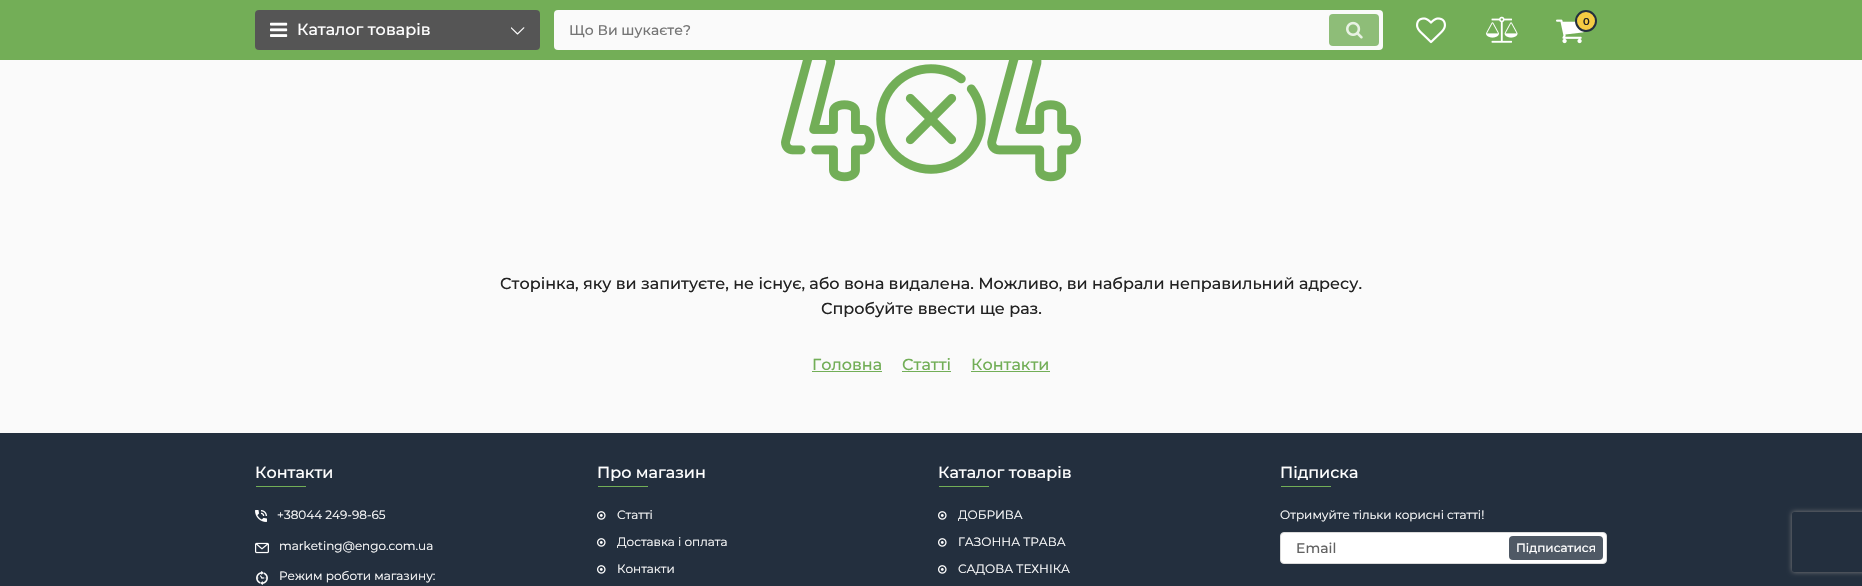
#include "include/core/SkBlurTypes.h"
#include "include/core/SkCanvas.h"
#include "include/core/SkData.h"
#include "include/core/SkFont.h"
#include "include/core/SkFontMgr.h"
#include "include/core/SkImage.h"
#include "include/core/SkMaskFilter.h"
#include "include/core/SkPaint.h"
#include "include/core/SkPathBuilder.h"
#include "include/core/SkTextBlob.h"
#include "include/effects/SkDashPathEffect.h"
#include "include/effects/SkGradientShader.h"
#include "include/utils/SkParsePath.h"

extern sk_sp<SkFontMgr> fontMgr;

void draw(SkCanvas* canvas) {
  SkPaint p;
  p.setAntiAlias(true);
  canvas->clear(SkColorSetRGB(250, 250, 250));
  p.setColor(SkColorSetRGB(115, 174, 87));
  canvas->drawRect(SkRect::MakeLTRB(0, 0, 1862, 60), p);
  p.setColor(SkColorSetRGB(85, 85, 85));
  canvas->drawRoundRect(SkRect::MakeLTRB(255, 10, 540, 50), 4, 4, p);
  canvas->drawImageRect(SkImages::DeferredFromEncodedData(SkData::MakeFromFileName("images/1.png")), SkRect::MakeLTRB(270, 22, 288, 37), SkSamplingOptions());
  canvas->drawImageRect(SkImages::DeferredFromEncodedData(SkData::MakeFromFileName("images/2.png")), SkRect::MakeLTRB(511, 27, 525, 35), SkSamplingOptions());
  p.setColor(SkColorSetRGB(250, 250, 250));
  canvas->drawRoundRect(SkRect::MakeLTRB(554, 10, 1383, 50), 4, 4, p);
  p.setColor(SkColorSetRGB(142, 189, 120));
  canvas->drawRoundRect(SkRect::MakeLTRB(1329, 14, 1379, 46), 4, 4, p);
  canvas->drawImageRect(SkImages::DeferredFromEncodedData(SkData::MakeFromFileName("images/3.png")), SkRect::MakeLTRB(1346, 21, 1363, 39), SkSamplingOptions());
  canvas->drawImageRect(SkImages::DeferredFromEncodedData(SkData::MakeFromFileName("images/4.png")), SkRect::MakeLTRB(1416, 17, 1446, 44), SkSamplingOptions());
  canvas->drawImageRect(SkImages::DeferredFromEncodedData(SkData::MakeFromFileName("images/5.png")), SkRect::MakeLTRB(1486, 16, 1518, 43), SkSamplingOptions());
  canvas->drawImageRect(SkImages::DeferredFromEncodedData(SkData::MakeFromFileName("images/6.png")), SkRect::MakeLTRB(1556, 19, 1584, 44), SkSamplingOptions());
  p.setColor(SkColorSetRGB(245, 204, 67));
  canvas->drawCircle(1586, 21, 10, p);
  p.setStyle(SkPaint::kStroke_Style);
  p.setStrokeWidth(2);
  p.setColor(SkColorSetRGB(35, 47, 62));
  canvas->drawCircle(1586, 21, 10, p);
  canvas->drawImageRect(SkImages::DeferredFromEncodedData(SkData::MakeFromFileName("images/7.png")), SkRect::MakeLTRB(781, 60, 1081, 182), SkSamplingOptions());
  p.setStyle(SkPaint::kFill_Style);
  p.setColor(SkColorSetRGB(114, 174, 87));
  canvas->drawRect(SkRect::MakeLTRB(812, 371, 882, 372), p);
  canvas->drawRect(SkRect::MakeLTRB(902, 371, 951, 372), p);
  canvas->drawRect(SkRect::MakeLTRB(971, 371, 1050, 372), p);
  p.setColor(SkColorSetRGB(35, 47, 62));
  canvas->drawRect(SkRect::MakeLTRB(0, 433, 1862, 586), p);
  p.setColor(SkColorSetRGB(114, 174, 87));
  canvas->drawRect(SkRect::MakeLTRB(256, 486, 306, 487), p);
  canvas->drawImageRect(SkImages::DeferredFromEncodedData(SkData::MakeFromFileName("images/8.png")), SkRect::MakeLTRB(255, 510, 267, 522), SkSamplingOptions());
  canvas->drawImageRect(SkImages::DeferredFromEncodedData(SkData::MakeFromFileName("images/9.png")), SkRect::MakeLTRB(255, 542, 269, 554), SkSamplingOptions());
  canvas->drawImageRect(SkImages::DeferredFromEncodedData(SkData::MakeFromFileName("images/10.png")), SkRect::MakeLTRB(256, 571, 268, 585), SkSamplingOptions());
  canvas->drawRect(SkRect::MakeLTRB(598, 486, 648, 487), p);
  canvas->drawImageRect(SkImages::DeferredFromEncodedData(SkData::MakeFromFileName("images/11.png")), SkRect::MakeLTRB(597, 511, 606, 520), SkSamplingOptions());
  canvas->drawImageRect(SkImages::DeferredFromEncodedData(SkData::MakeFromFileName("images/11.png")), SkRect::MakeLTRB(597, 538, 606, 547), SkSamplingOptions());
  canvas->drawImageRect(SkImages::DeferredFromEncodedData(SkData::MakeFromFileName("images/11.png")), SkRect::MakeLTRB(597, 565, 606, 574), SkSamplingOptions());
  canvas->drawRect(SkRect::MakeLTRB(939, 486, 989, 487), p);
  canvas->drawImageRect(SkImages::DeferredFromEncodedData(SkData::MakeFromFileName("images/11.png")), SkRect::MakeLTRB(938, 511, 947, 520), SkSamplingOptions());
  canvas->drawImageRect(SkImages::DeferredFromEncodedData(SkData::MakeFromFileName("images/11.png")), SkRect::MakeLTRB(938, 538, 947, 547), SkSamplingOptions());
  canvas->drawImageRect(SkImages::DeferredFromEncodedData(SkData::MakeFromFileName("images/11.png")), SkRect::MakeLTRB(938, 565, 947, 574), SkSamplingOptions());
  canvas->drawRect(SkRect::MakeLTRB(1281, 486, 1331, 487), p);
  p.setColor(SK_ColorWHITE);
  canvas->drawRoundRect(SkRect::MakeLTRB(1280.5f, 532.5f, 1606.5f, 563.5f), 3.5f, 3.5f, p);
  p.setStyle(SkPaint::kStroke_Style);
  p.setStrokeWidth(1);
  p.setColor(SkColorSetRGB(219, 219, 219));
  canvas->drawRoundRect(SkRect::MakeLTRB(1280.5f, 532.5f, 1606.5f, 563.5f), 3.5f, 3.5f, p);
  p.setStyle(SkPaint::kFill_Style);
  p.setColor(SkColorSetRGB(79, 89, 101));
  canvas->drawRoundRect(SkRect::MakeLTRB(1509, 536, 1603, 560), 4, 4, p);
  canvas->save();
  canvas->clipPath(SkPathBuilder(SkPathFillType::kEvenOdd).moveTo(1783, 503).lineTo(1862, 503).lineTo(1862, 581).lineTo(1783, 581).close().moveTo(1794, 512).lineTo(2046, 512).cubicTo(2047, 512, 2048, 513, 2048, 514).lineTo(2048, 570).cubicTo(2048, 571, 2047, 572, 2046, 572).lineTo(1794, 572).cubicTo(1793, 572, 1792, 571, 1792, 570).lineTo(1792, 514).cubicTo(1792, 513, 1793, 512, 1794, 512).close().detach(), true);
  p.setColor(SkColorSetRGB(128, 128, 128));
  p.setMaskFilter(SkMaskFilter::MakeBlur(kNormal_SkBlurStyle, 2.5f));
  canvas->drawRoundRect(SkRect::MakeLTRB(1792, 512, 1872, 572), 2, 2, p);
  p.setMaskFilter(nullptr);
  canvas->restore();
  SkFont font1(fontMgr->matchFamilyStyle("Montserrat", SkFontStyle(500, SkFontStyle::kNormal_Width, SkFontStyle::kUpright_Slant)), 16);
  font1.setSubpixel(true);
  p.setColor(SK_ColorWHITE);
  canvas->drawString("Каталог товарів", 297, 35, font1, p);
  SkFont font2(fontMgr->matchFamilyStyle("Montserrat", SkFontStyle(500, SkFontStyle::kNormal_Width, SkFontStyle::kUpright_Slant)), 14);
  font2.setSubpixel(true);
  p.setColor(SkColorSetRGB(117, 117, 117));
  canvas->drawString("Що Ви шукаєте?", 569, 35, font2, p);
  SkFont font3(fontMgr->matchFamilyStyle("Montserrat", SkFontStyle(600, SkFontStyle::kNormal_Width, SkFontStyle::kUpright_Slant)), 10);
  font3.setSubpixel(true);
  p.setColor(SkColorSetRGB(34, 34, 34));
  canvas->drawString("0", 1583, 25, font3, p);
  canvas->drawString("Сторінка, яку ви запитуєте, не існує, або вона видалена. Можливо, ви набрали неправильний адресу.", 500, 289, font1, p);
  canvas->drawString("Спробуйте ввести ще раз.", 821, 314, font1, p);
  p.setColor(SkColorSetRGB(114, 174, 87));
  canvas->drawString("Головна", 812, 370, font1, p);
  canvas->drawString("Статті", 902, 370, font1, p);
  canvas->drawString("Контакти", 971, 370, font1, p);
  p.setColor(SK_ColorWHITE);
  canvas->drawString("Контакти", 255, 478, font1, p);
  SkFont font4(fontMgr->matchFamilyStyle("Montserrat", SkFontStyle::Normal()), 12);
  font4.setSubpixel(true);
  canvas->drawString("+38044 249-98-65", 277, 519, font4, p);
  canvas->drawString("marketing@engo.com.ua", 279, 550, font4, p);
  canvas->drawString("Режим роботи магазину:", 279, 580, font4, p);
  canvas->drawString("Про магазин", 597, 478, font1, p);
  canvas->drawString("Статті", 617, 519, font4, p);
  canvas->drawString("Доставка і оплата", 617, 546, font4, p);
  canvas->drawString("Контакти", 617, 573, font4, p);
  canvas->drawString("Каталог товарів", 938, 478, font1, p);
  canvas->drawString("ДОБРИВА", 958, 519, font4, p);
  canvas->drawString("ГАЗОННА ТРАВА", 958, 546, font4, p);
  canvas->drawString("САДОВА ТЕХНІКА", 958, 573, font4, p);
  canvas->drawString("Підписка", 1280, 478, font1, p);
  canvas->drawString("Отримуйте тільки корисні статті!", 1280, 519, font4, p);
  p.setColor(SkColorSetRGB(98, 98, 98));
  canvas->drawString("Email", 1296, 553, font2, p);
  SkFont font5(fontMgr->matchFamilyStyle("Montserrat", SkFontStyle(500, SkFontStyle::kNormal_Width, SkFontStyle::kUpright_Slant)), 12);
  font5.setSubpixel(true);
  p.setColor(SK_ColorWHITE);
  canvas->drawString("Підписатися", 1516, 552, font5, p);
}
